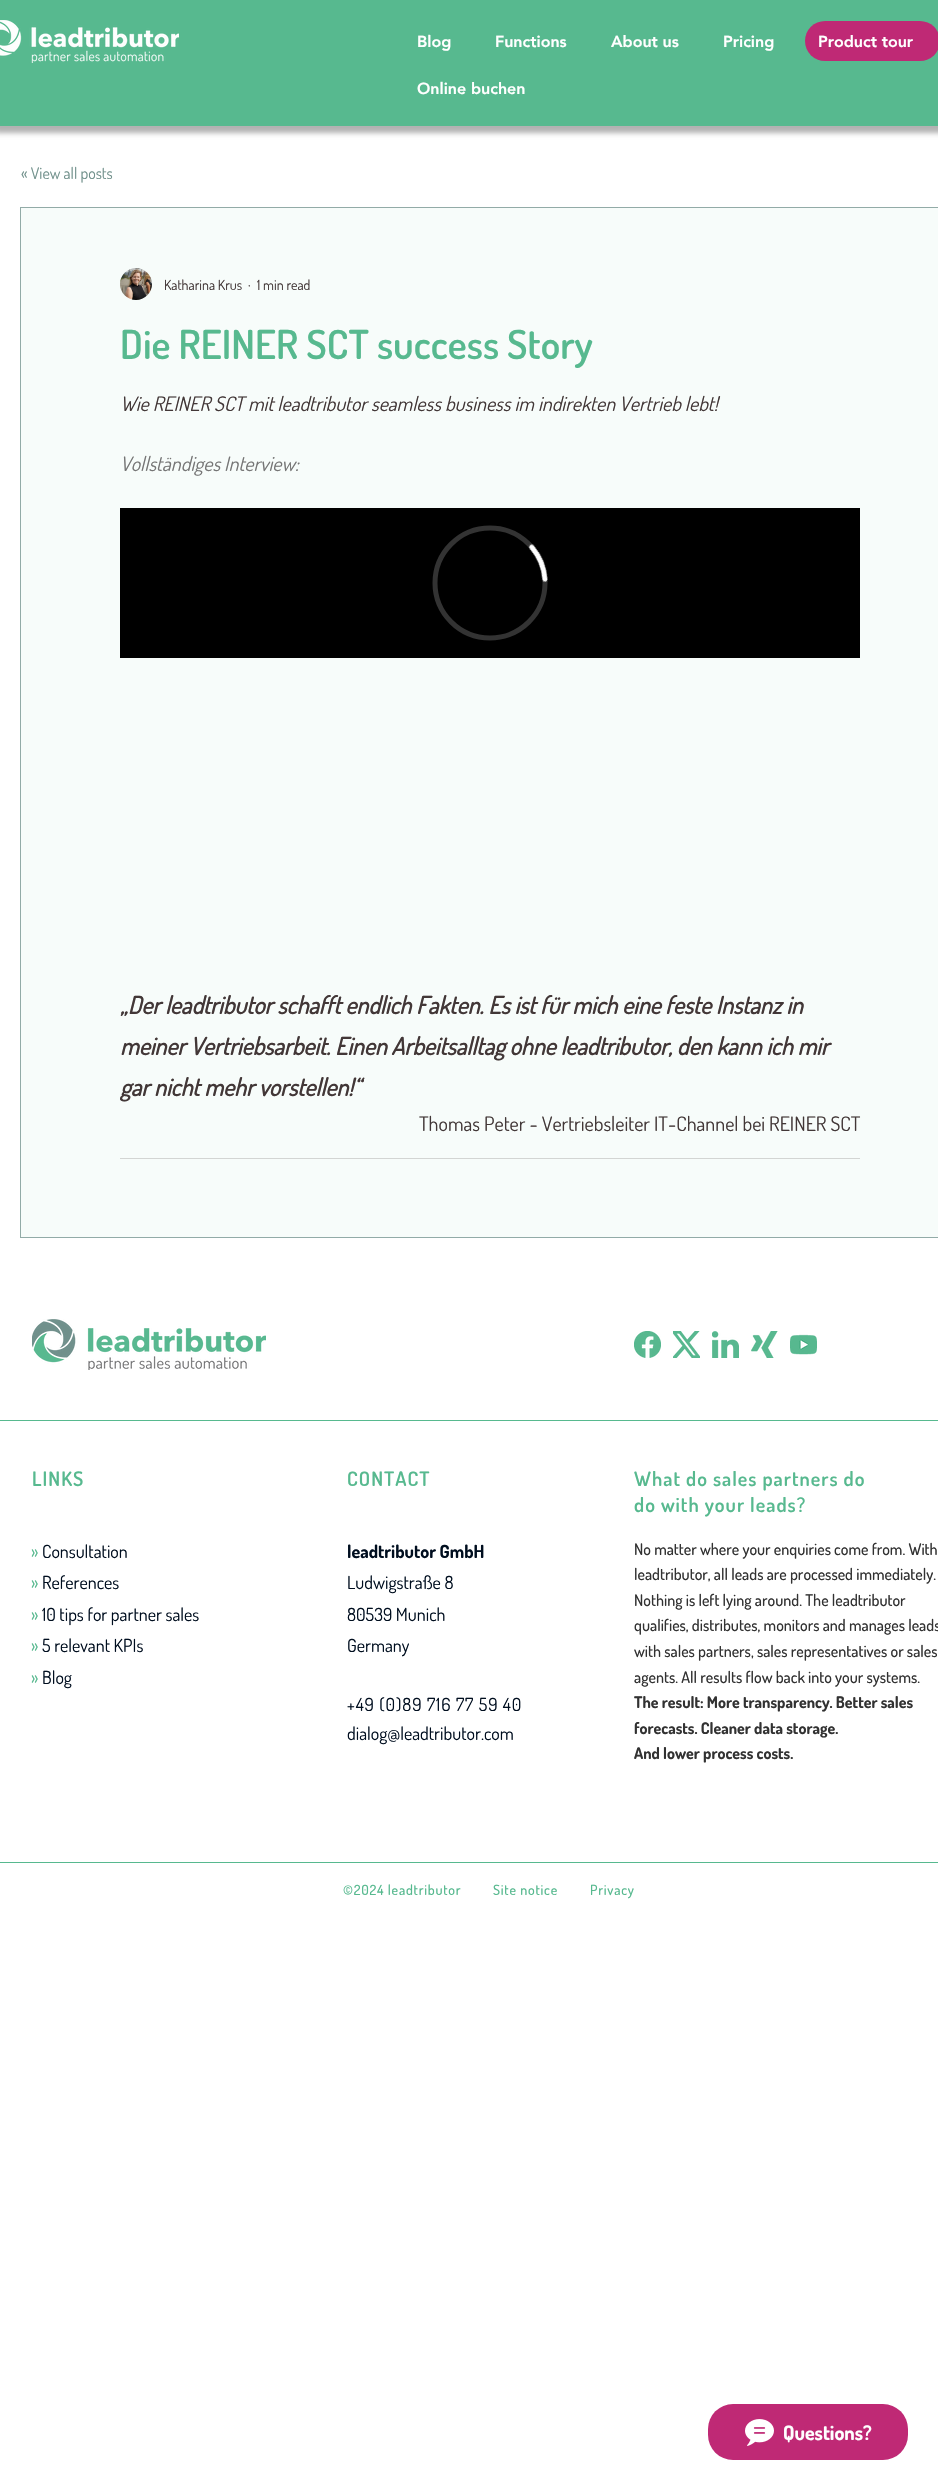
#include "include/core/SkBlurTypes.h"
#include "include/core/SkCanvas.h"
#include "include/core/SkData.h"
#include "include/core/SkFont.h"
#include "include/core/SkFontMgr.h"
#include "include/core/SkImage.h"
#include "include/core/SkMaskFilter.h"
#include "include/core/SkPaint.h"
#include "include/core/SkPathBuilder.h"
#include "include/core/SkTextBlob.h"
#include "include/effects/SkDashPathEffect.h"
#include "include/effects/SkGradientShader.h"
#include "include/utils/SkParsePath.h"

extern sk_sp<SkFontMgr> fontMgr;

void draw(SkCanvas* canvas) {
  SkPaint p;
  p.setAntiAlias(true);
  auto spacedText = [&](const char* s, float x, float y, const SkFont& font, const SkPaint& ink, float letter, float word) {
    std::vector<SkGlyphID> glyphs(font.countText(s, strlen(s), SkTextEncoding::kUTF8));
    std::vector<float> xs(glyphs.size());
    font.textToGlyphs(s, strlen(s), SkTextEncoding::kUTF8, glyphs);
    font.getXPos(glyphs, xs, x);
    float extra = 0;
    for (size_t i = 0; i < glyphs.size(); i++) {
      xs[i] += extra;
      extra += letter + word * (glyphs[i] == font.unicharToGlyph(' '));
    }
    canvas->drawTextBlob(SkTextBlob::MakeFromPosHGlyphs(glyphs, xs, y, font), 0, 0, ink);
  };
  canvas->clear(SK_ColorWHITE);
  p.setColor(SkColorSetARGB(77, 0, 0, 0));
  p.setMaskFilter(SkMaskFilter::MakeBlur(kNormal_SkBlurStyle, 2.5f));
  canvas->drawRect(SkRect::MakeLTRB(-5, -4, 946, 133), p);
  p.setMaskFilter(nullptr);
  p.setColor(SkColorSetRGB(87, 185, 143));
  canvas->drawRect(SkRect::MakeLTRB(0, 0, 938, 126), p);
  canvas->drawImageRect(SkImages::DeferredFromEncodedData(SkData::MakeFromFileName("images/1.png")), SkRect::MakeLTRB(0, 20, 179, 63), SkSamplingOptions());
  p.setColor(SkColorSetRGB(191, 41, 117));
  canvas->drawRoundRect(SkRect::MakeLTRB(805, 21, 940, 61), 20, 20, p);
  p.setColor(SkColorSetRGB(247, 252, 250));
  canvas->drawRect(SkRect::MakeLTRB(20.5f, 207.5f, 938.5f, 1237.5f), p);
  p.setStyle(SkPaint::kStroke_Style);
  p.setStrokeWidth(1);
  p.setColor(SkColorSetRGB(146, 171, 167));
  canvas->drawRect(SkRect::MakeLTRB(20.5f, 207.5f, 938.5f, 1237.5f), p);
  canvas->drawImageRect(SkImages::DeferredFromEncodedData(SkData::MakeFromFileName("images/2.png")), SkRect::MakeLTRB(120, 268, 152, 300), SkSamplingOptions());
  canvas->drawImageRect(SkImages::DeferredFromEncodedData(SkData::MakeFromFileName("images/3.png")), SkRect::MakeLTRB(120, 508, 860, 658), SkSamplingOptions());
  p.setStyle(SkPaint::kFill_Style);
  p.setColor(SkColorSetRGB(211, 213, 211));
  canvas->drawRect(SkRect::MakeLTRB(120, 1158, 860, 1159), p);
  canvas->drawImageRect(SkImages::DeferredFromEncodedData(SkData::MakeFromFileName("images/4.png")), SkRect::MakeLTRB(32, 1319, 266, 1370), SkSamplingOptions());
  canvas->drawImageRect(SkImages::DeferredFromEncodedData(SkData::MakeFromFileName("images/5.png")), SkRect::MakeLTRB(634, 1331, 661, 1358), SkSamplingOptions());
  canvas->drawImageRect(SkImages::DeferredFromEncodedData(SkData::MakeFromFileName("images/6.png")), SkRect::MakeLTRB(673, 1331, 700, 1358), SkSamplingOptions());
  canvas->drawImageRect(SkImages::DeferredFromEncodedData(SkData::MakeFromFileName("images/7.png")), SkRect::MakeLTRB(712, 1331, 739, 1358), SkSamplingOptions());
  canvas->drawImageRect(SkImages::DeferredFromEncodedData(SkData::MakeFromFileName("images/8.png")), SkRect::MakeLTRB(751, 1331, 778, 1358), SkSamplingOptions());
  canvas->drawImageRect(SkImages::DeferredFromEncodedData(SkData::MakeFromFileName("images/9.png")), SkRect::MakeLTRB(790, 1334, 817, 1355), SkSamplingOptions());
  p.setColor(SkColorSetRGB(87, 185, 143));
  canvas->drawRect(SkRect::MakeLTRB(0, 1420, 938, 1421), p);
  canvas->drawRect(SkRect::MakeLTRB(0, 1862, 938, 1863), p);
  p.setColor(SkColorSetRGB(191, 41, 117));
  canvas->drawRoundRect(SkRect::MakeLTRB(708, 2404, 908, 2460), 25, 25, p);
  canvas->drawImageRect(SkImages::DeferredFromEncodedData(SkData::MakeFromFileName("images/10.png")), SkRect::MakeLTRB(745, 2419, 774, 2446), SkSamplingOptions());
  SkFont font1(fontMgr->matchFamilyStyle("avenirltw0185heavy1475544", SkFontStyle(900, SkFontStyle::kNormal_Width, SkFontStyle::kUpright_Slant)), 16);
  font1.setSubpixel(true);
  p.setColor(SK_ColorWHITE);
  canvas->drawString("Blog", 417, 47, font1, p);
  canvas->drawString("Functions", 495, 47, font1, p);
  canvas->drawString("About us", 611, 47, font1, p);
  canvas->drawString("Pricing", 723, 47, font1, p);
  canvas->drawString("Product tour", 818, 47, font1, p);
  canvas->drawString("Online buchen", 417, 94, font1, p);
  SkFont font2(fontMgr->matchFamilyStyle("Dosis", SkFontStyle::Normal()), 16);
  font2.setSubpixel(true);
  p.setColor(SkColorSetRGB(112, 144, 139));
  canvas->drawString("« View all posts", 21, 179, font2, p);
  SkFont font3(fontMgr->matchFamilyStyle("Dosis", SkFontStyle::Normal()), 14);
  font3.setSubpixel(true);
  p.setColor(SkColorSetRGB(66, 55, 55));
  canvas->drawString("Katharina Krus", 164, 290, font3, p);
  canvas->drawString("·", 248, 290, font3, p);
  canvas->drawString("1 min read", 257, 290, font3, p);
  SkFont font4(fontMgr->matchFamilyStyle("Dosis", SkFontStyle(600, SkFontStyle::kNormal_Width, SkFontStyle::kUpright_Slant)), 40);
  font4.setSubpixel(true);
  p.setColor(SkColorSetRGB(87, 185, 143));
  canvas->drawString("Die REINER SCT success Story", 120, 359, font4, p);
  SkFont font5(fontMgr->matchFamilyStyle("Dosis", SkFontStyle::Italic()), 20);
  font5.setSubpixel(true);
  p.setColor(SkColorSetRGB(66, 55, 55));
  canvas->drawString("Wie REINER SCT mit leadtributor seamless business im indirekten Vertrieb lebt!", 120, 411, font5, p);
  p.setColor(SkColorSetRGB(117, 117, 117));
  canvas->drawString("Vollständiges Interview:", 120, 471, font5, p);
  SkFont font6(fontMgr->matchFamilyStyle("Dosis", SkFontStyle::BoldItalic()), 24);
  font6.setSubpixel(true);
  p.setColor(SkColorSetRGB(66, 55, 55));
  canvas->drawString("„Der leadtributor schafft endlich Fakten. Es ist für mich eine feste Instanz in", 120, 1014, font6, p);
  canvas->drawString("meiner Vertriebsarbeit. Einen Arbeitsalltag ohne leadtributor, den kann ich mir", 120, 1055, font6, p);
  canvas->drawString("gar nicht mehr vorstellen!“", 120, 1096, font6, p);
  SkFont font7(fontMgr->matchFamilyStyle("Dosis", SkFontStyle::Normal()), 20);
  font7.setSubpixel(true);
  canvas->drawString("Thomas Peter - Vertriebsleiter IT-Channel bei REINER SCT", 419, 1131, font7, p);
  SkFont font8(fontMgr->matchFamilyStyle("Dosis", SkFontStyle(600, SkFontStyle::kNormal_Width, SkFontStyle::kUpright_Slant)), 20);
  font8.setSubpixel(true);
  p.setColor(SkColorSetRGB(87, 185, 143));
  spacedText("LINKS", 32, 1486, font8, p, 1, 0);
  SkFont font9(fontMgr->matchFamilyStyle("Dosis", SkFontStyle::Normal()), 18);
  font9.setSubpixel(true);
  canvas->drawString("»", 31, 1558, font9, p);
  p.setColor(SkColorSetRGB(0, 14, 31));
  canvas->drawString("Consultation", 42, 1558, font9, p);
  p.setColor(SkColorSetRGB(87, 185, 143));
  canvas->drawString("»", 31, 1589, font9, p);
  p.setColor(SkColorSetRGB(0, 14, 31));
  canvas->drawString("References", 42, 1589, font9, p);
  p.setColor(SkColorSetRGB(87, 185, 143));
  canvas->drawString("»", 31, 1621, font9, p);
  p.setColor(SkColorSetRGB(0, 14, 31));
  canvas->drawString("10 tips for partner sales", 42, 1621, font9, p);
  p.setColor(SkColorSetRGB(87, 185, 143));
  canvas->drawString("»", 31, 1652, font9, p);
  p.setColor(SkColorSetRGB(0, 14, 31));
  canvas->drawString("5 relevant KPIs", 42, 1652, font9, p);
  p.setColor(SkColorSetRGB(87, 185, 143));
  canvas->drawString("»", 31, 1684, font9, p);
  p.setColor(SkColorSetRGB(0, 14, 31));
  canvas->drawString("Blog", 42, 1684, font9, p);
  p.setColor(SkColorSetRGB(87, 185, 143));
  spacedText("CONTACT", 347, 1486, font8, p, 1, 0);
  SkFont font10(fontMgr->matchFamilyStyle("Dosis", SkFontStyle::Bold()), 18);
  font10.setSubpixel(true);
  p.setColor(SkColorSetRGB(0, 14, 31));
  canvas->drawString("leadtributor GmbH", 347, 1558, font10, p);
  canvas->drawString("Ludwigstraße 8", 347, 1589, font9, p);
  canvas->drawString("80539 Munich", 347, 1621, font9, p);
  canvas->drawString("Germany", 347, 1652, font9, p);
  spacedText("+49 (0)89 716 77 59 40", 347, 1711, font9, p, 0.9f, 0);
  canvas->drawString("dialog@leadtributor.com", 347, 1740, font9, p);
  p.setColor(SkColorSetRGB(87, 185, 143));
  spacedText("What do sales partners do", 634, 1486, font8, p, 1, 0);
  spacedText("do with your leads?", 634, 1512, font8, p, 1, 0);
  SkFont font11(fontMgr->matchFamilyStyle("Dosis", SkFontStyle(500, SkFontStyle::kNormal_Width, SkFontStyle::kUpright_Slant)), 16);
  font11.setSubpixel(true);
  p.setColor(SkColorSetRGB(50, 50, 50));
  canvas->drawString("No matter where your enquiries come from. With", 634, 1555, font11, p);
  canvas->drawString("leadtributor, all leads are processed immediately.", 634, 1580, font11, p);
  canvas->drawString("Nothing is left lying around. The leadtributor", 634, 1606, font11, p);
  canvas->drawString("qualifies, distributes, monitors and manages leads", 634, 1631, font11, p);
  canvas->drawString("with sales partners, sales representatives or sales", 634, 1657, font11, p);
  canvas->drawString("agents. All results flow back into your systems.", 634, 1683, font11, p);
  SkFont font12(fontMgr->matchFamilyStyle("Dosis", SkFontStyle::Bold()), 16);
  font12.setSubpixel(true);
  canvas->drawString("The result: More transparency. Better sales", 634, 1708, font12, p);
  canvas->drawString("forecasts. Cleaner data storage.", 634, 1734, font12, p);
  canvas->drawString("And lower process costs.", 634, 1759, font12, p);
  SkFont font13(fontMgr->matchFamilyStyle("Dosis", SkFontStyle(500, SkFontStyle::kNormal_Width, SkFontStyle::kUpright_Slant)), 14);
  font13.setSubpixel(true);
  p.setColor(SkColorSetRGB(87, 185, 143));
  spacedText("©2024 leadtributor", 343, 1895, font13, p, 0.75f, 0);
  spacedText("Site notice", 493, 1895, font13, p, 0.75f, 0);
  spacedText("Privacy", 590, 1895, font13, p, 0.75f, 0);
  SkFont font14(fontMgr->matchFamilyStyle("Dosis", SkFontStyle::Bold()), 20);
  font14.setSubpixel(true);
  p.setColor(SK_ColorWHITE);
  canvas->drawString("Questions?", 783, 2440, font14, p);
}
